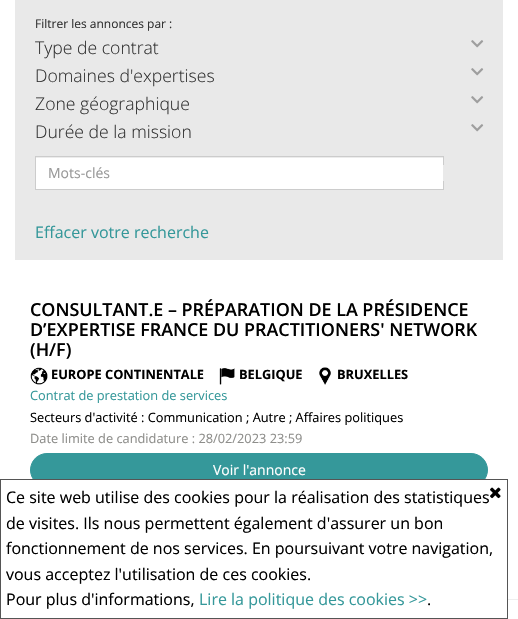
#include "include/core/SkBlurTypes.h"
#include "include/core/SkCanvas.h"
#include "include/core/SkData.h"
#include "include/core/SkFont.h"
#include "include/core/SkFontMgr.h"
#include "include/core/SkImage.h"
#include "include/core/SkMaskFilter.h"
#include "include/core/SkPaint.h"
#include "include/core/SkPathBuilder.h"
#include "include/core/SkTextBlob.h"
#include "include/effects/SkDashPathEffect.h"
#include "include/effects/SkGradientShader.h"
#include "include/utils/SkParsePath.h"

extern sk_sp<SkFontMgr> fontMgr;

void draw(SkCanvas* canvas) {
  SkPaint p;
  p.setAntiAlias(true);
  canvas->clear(SK_ColorWHITE);
  p.setColor(SkColorSetRGB(233, 233, 233));
  canvas->drawRect(SkRect::MakeLTRB(15, 0, 503, 260), p);
  canvas->drawImageRect(SkImages::DeferredFromEncodedData(SkData::MakeFromFileName("images/1.png")), SkRect::MakeLTRB(471, 40, 484, 48), SkSamplingOptions());
  canvas->drawImageRect(SkImages::DeferredFromEncodedData(SkData::MakeFromFileName("images/1.png")), SkRect::MakeLTRB(471, 68, 484, 76), SkSamplingOptions());
  canvas->drawImageRect(SkImages::DeferredFromEncodedData(SkData::MakeFromFileName("images/1.png")), SkRect::MakeLTRB(471, 96, 484, 104), SkSamplingOptions());
  canvas->drawImageRect(SkImages::DeferredFromEncodedData(SkData::MakeFromFileName("images/1.png")), SkRect::MakeLTRB(471, 124, 484, 132), SkSamplingOptions());
  p.setColor(SK_ColorWHITE);
  canvas->drawRect(SkRect::MakeLTRB(36, 158, 443, 189), p);
  p.setColor(SkColorSetRGB(236, 236, 236));
  canvas->drawRect(SkRect::MakeLTRB(36, 157, 443, 158), p);
  p.setStyle(SkPaint::kStroke_Style);
  p.setStrokeWidth(1);
  p.setColor(SkColorSetRGB(204, 204, 204));
  canvas->drawRect(SkRect::MakeLTRB(35.5f, 156.5f, 443.5f, 189.5f), p);
  p.setStyle(SkPaint::kFill_Style);
  p.setColor(SkColorSetRGB(233, 233, 233));
  canvas->drawPath(SkPathBuilder().moveTo(443, 165).lineTo(463, 165).cubicTo(467.5f, 165, 471, 168.5f, 471, 173).cubicTo(471, 177.5f, 467.5f, 181, 463, 181).lineTo(443, 181).close().detach(), p);
  canvas->drawImageRect(SkImages::DeferredFromEncodedData(SkData::MakeFromFileName("images/2.png")), SkRect::MakeLTRB(30, 367, 48, 385), SkSamplingOptions());
  canvas->drawImageRect(SkImages::DeferredFromEncodedData(SkData::MakeFromFileName("images/3.png")), SkRect::MakeLTRB(219, 368, 235, 385), SkSamplingOptions());
  canvas->drawImageRect(SkImages::DeferredFromEncodedData(SkData::MakeFromFileName("images/4.png")), SkRect::MakeLTRB(319, 367, 331, 385), SkSamplingOptions());
  p.setColor(SkColorSetRGB(53, 152, 154));
  canvas->drawRoundRect(SkRect::MakeLTRB(30.5f, 453.5f, 487.5f, 486.5f), 16.5f, 16.5f, p);
  p.setStyle(SkPaint::kStroke_Style);
  canvas->drawRoundRect(SkRect::MakeLTRB(30.5f, 453.5f, 487.5f, 486.5f), 16.5f, 16.5f, p);
  p.setStyle(SkPaint::kFill_Style);
  p.setColor(SK_ColorWHITE);
  canvas->drawRect(SkRect::MakeLTRB(33, 480, 485, 487), p);
  p.setStyle(SkPaint::kStroke_Style);
  p.setColor(SkColorSetRGB(85, 85, 85));
  canvas->drawRect(SkRect::MakeLTRB(0.5f, 479.5f, 507.5f, 618.5f), p);
  canvas->drawImageRect(SkImages::DeferredFromEncodedData(SkData::MakeFromFileName("images/5.png")), SkRect::MakeLTRB(490, 487, 501, 499), SkSamplingOptions());
  p.setStyle(SkPaint::kFill_Style);
  p.setColor(SkColorSetRGB(238, 238, 238));
  canvas->drawRect(SkRect::MakeLTRB(508, 599, 518, 600), p);
  SkFont font1(fontMgr->matchFamilyStyle("Open Sans", SkFontStyle::Normal()), 12);
  font1.setSubpixel(true);
  p.setColor(SkColorSetRGB(51, 51, 51));
  canvas->drawString("Filtrer les annonces par :", 35, 28, font1, p);
  SkFont font2(fontMgr->matchFamilyStyle("Open Sans", SkFontStyle(300, SkFontStyle::kNormal_Width, SkFontStyle::kUpright_Slant)), 17.6f);
  font2.setSubpixel(true);
  canvas->drawString("Type de contrat", 35, 54, font2, p);
  canvas->drawString("Domaines d'expertises", 35, 82, font2, p);
  canvas->drawString("Zone géographique", 35, 110, font2, p);
  canvas->drawString("Durée de la mission", 35, 138, font2, p);
  SkFont font3(fontMgr->matchFamilyStyle("Open Sans", SkFontStyle::Normal()), 14);
  font3.setSubpixel(true);
  p.setColor(SkColorSetRGB(153, 153, 153));
  canvas->drawString("Mots-clés", 48, 178, font3, p);
  SkFont font4(fontMgr->matchFamilyStyle("Open Sans", SkFontStyle::Normal()), 16);
  font4.setSubpixel(true);
  p.setColor(SkColorSetRGB(53, 152, 154));
  canvas->drawString("Effacer votre recherche", 35, 238, font4, p);
  SkFont font5(fontMgr->matchFamilyStyle("Open Sans", SkFontStyle(600, SkFontStyle::kNormal_Width, SkFontStyle::kUpright_Slant)), 17.9f);
  font5.setSubpixel(true);
  p.setColor(SK_ColorBLACK);
  canvas->drawString("CONSULTANT.E – PRÉPARATION DE LA PRÉSIDENCE", 30, 316, font5, p);
  canvas->drawString("D’EXPERTISE FRANCE DU PRACTITIONERS' NETWORK", 30, 336, font5, p);
  canvas->drawString("(H/F)", 30, 356, font5, p);
  SkFont font6(fontMgr->matchFamilyStyle("Open Sans", SkFontStyle::Bold()), 12.8f);
  font6.setSubpixel(true);
  canvas->drawString("EUROPE CONTINENTALE", 51, 379, font6, p);
  canvas->drawString("BELGIQUE", 239, 379, font6, p);
  canvas->drawString("BRUXELLES", 337, 379, font6, p);
  SkFont font7(fontMgr->matchFamilyStyle("Open Sans", SkFontStyle::Normal()), 12.8f);
  font7.setSubpixel(true);
  p.setColor(SkColorSetRGB(53, 152, 154));
  canvas->drawString("Contrat de prestation de services", 30, 400, font7, p);
  p.setColor(SK_ColorBLACK);
  canvas->drawString("Secteurs d'activité : Communication ; Autre ; Affaires politiques", 30, 422, font7, p);
  p.setColor(SkColorSetRGB(142, 142, 139));
  canvas->drawString("Date limite de candidature : 28/02/2023 23:59", 30, 443, font7, p);
  p.setColor(SK_ColorWHITE);
  canvas->drawString("Voir l'annonce", 213, 475, font3, p);
  p.setColor(SK_ColorBLACK);
  canvas->drawString("Ce site web utilise des cookies pour la réalisation des statistiques", 6, 503, font4, p);
  canvas->drawString("de visites. Ils nous permettent également d'assurer un bon", 6, 529, font4, p);
  canvas->drawString("fonctionnement de nos services. En poursuivant votre navigation,", 6, 554, font4, p);
  canvas->drawString("vous acceptez l'utilisation de ces cookies.", 6, 580, font4, p);
  canvas->drawString("Pour plus d'informations,", 6, 605, font4, p);
  p.setColor(SkColorSetRGB(53, 152, 154));
  canvas->drawString("Lire la politique des cookies >>", 199, 605, font4, p);
  p.setColor(SK_ColorBLACK);
  canvas->drawString(".", 427, 605, font4, p);
}
